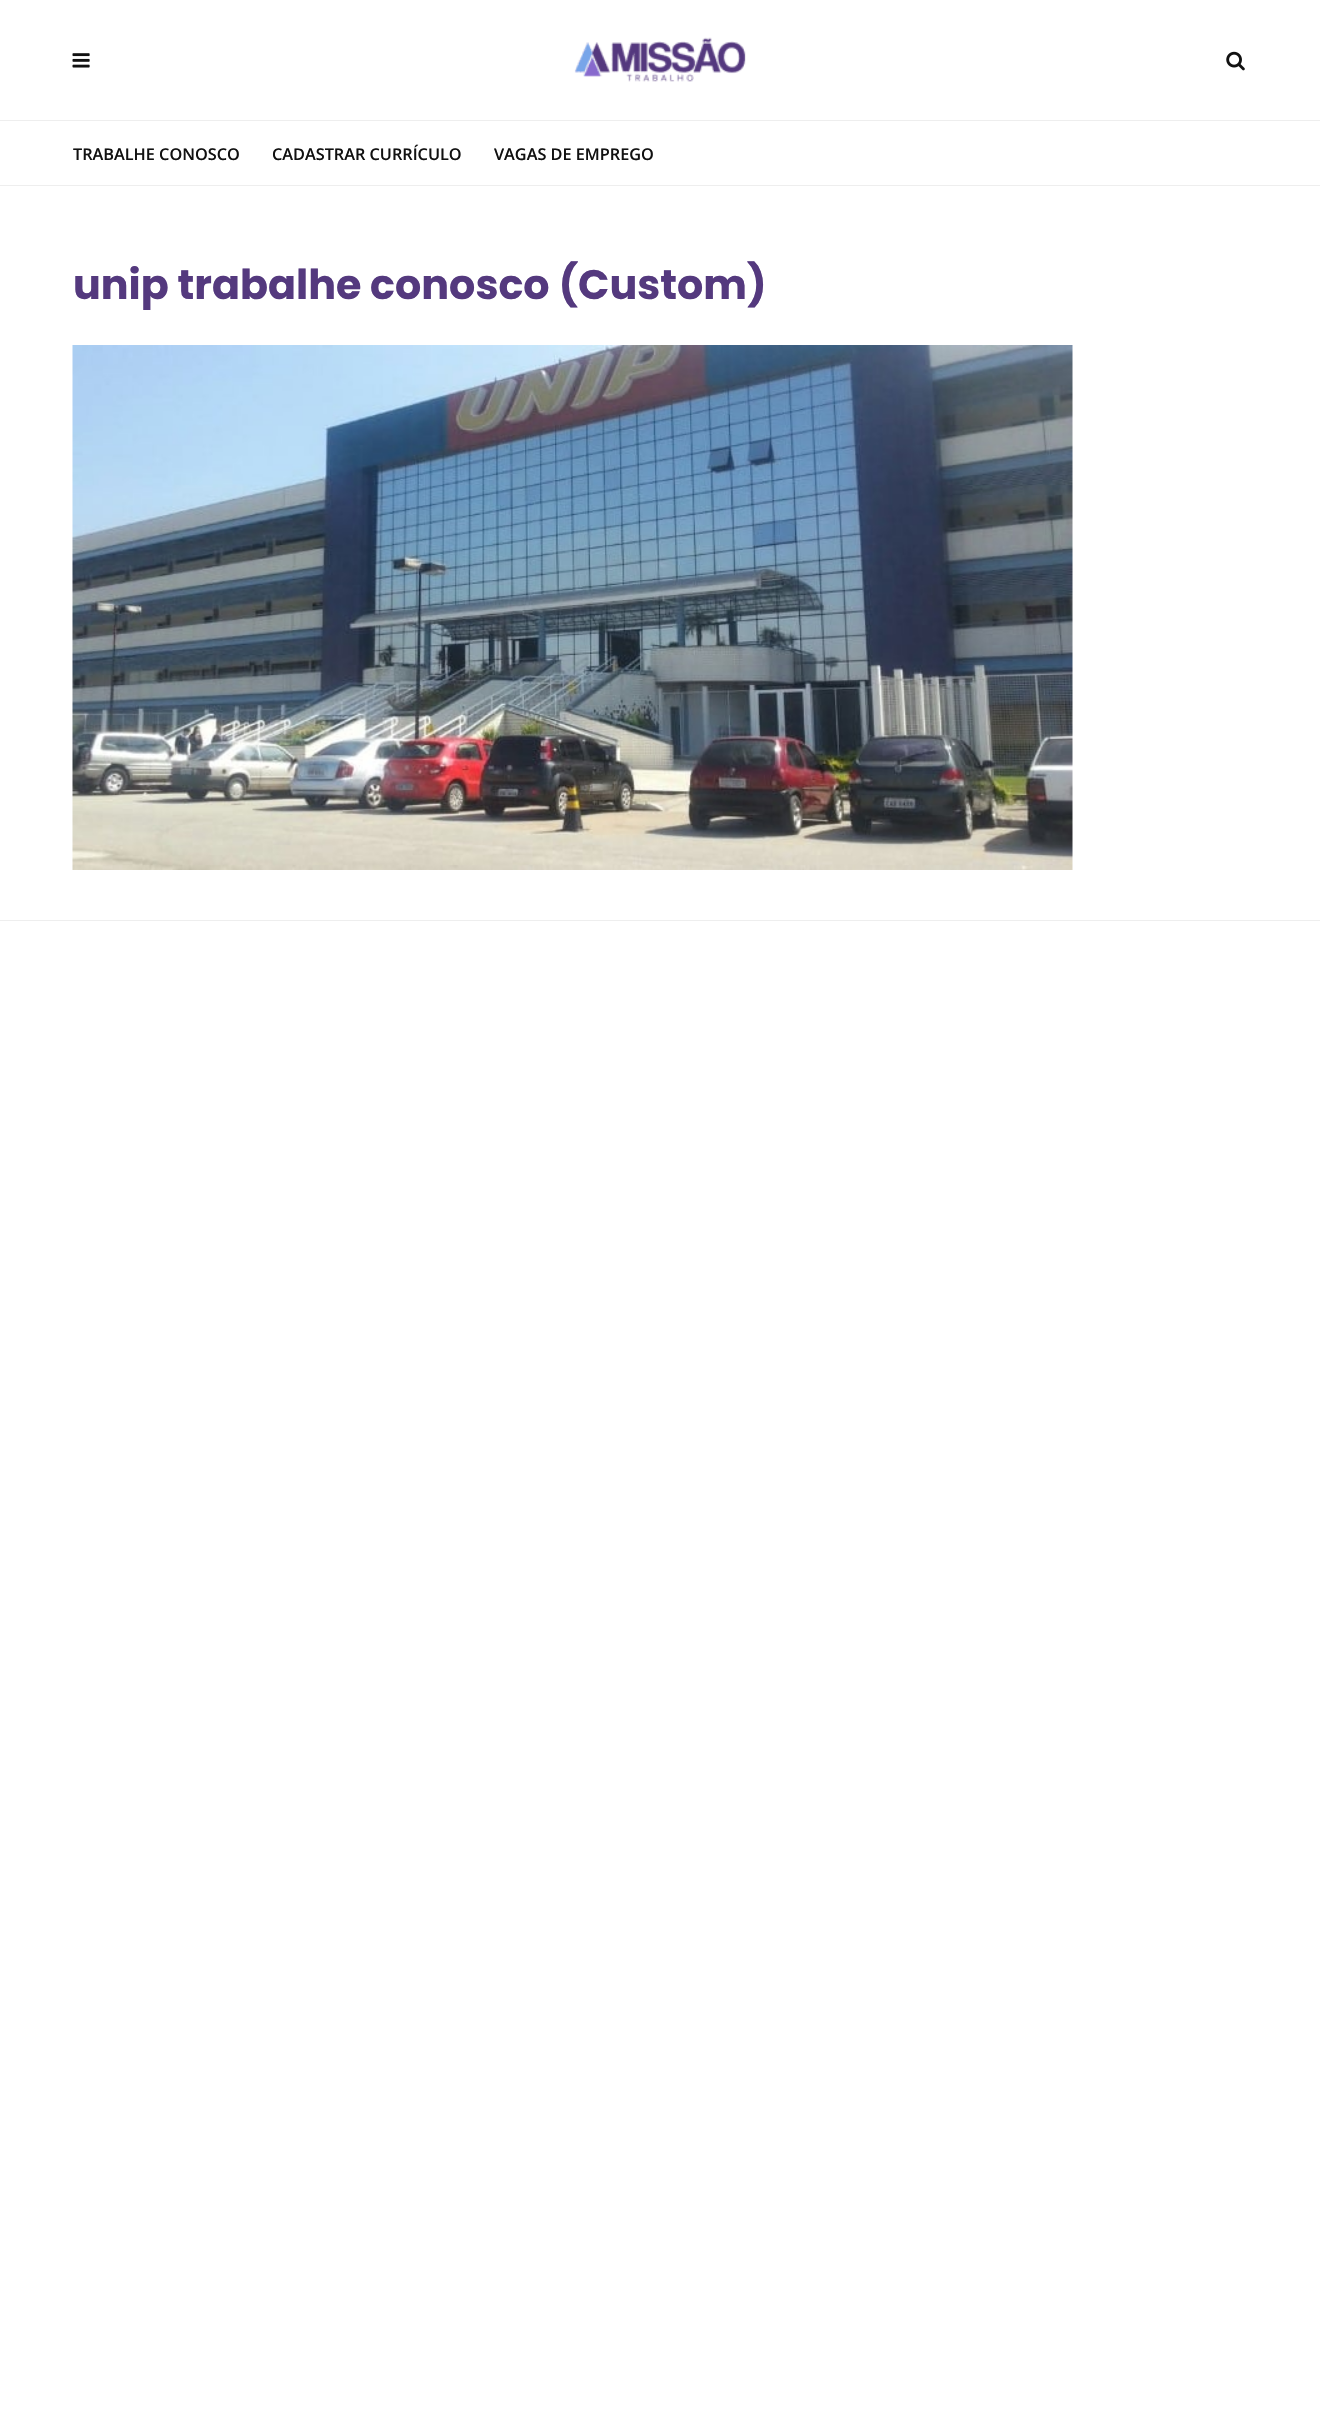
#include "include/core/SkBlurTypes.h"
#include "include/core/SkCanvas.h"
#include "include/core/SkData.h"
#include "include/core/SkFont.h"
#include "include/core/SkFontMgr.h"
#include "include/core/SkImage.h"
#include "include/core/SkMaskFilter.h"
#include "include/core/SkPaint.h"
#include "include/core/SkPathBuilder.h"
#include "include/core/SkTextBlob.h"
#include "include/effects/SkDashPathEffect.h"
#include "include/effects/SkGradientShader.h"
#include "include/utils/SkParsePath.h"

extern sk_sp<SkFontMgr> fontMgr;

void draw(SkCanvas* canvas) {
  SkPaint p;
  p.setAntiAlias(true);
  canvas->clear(SK_ColorWHITE);
  canvas->drawImageRect(SkImages::DeferredFromEncodedData(SkData::MakeFromFileName("images/1.png")), SkRect::MakeLTRB(72, 53, 90, 68), SkSamplingOptions());
  canvas->drawImageRect(SkImages::DeferredFromEncodedData(SkData::MakeFromFileName("images/2.png")), SkRect::MakeLTRB(574, 37, 746, 82), SkSamplingOptions());
  canvas->drawImageRect(SkImages::DeferredFromEncodedData(SkData::MakeFromFileName("images/3.png")), SkRect::MakeLTRB(1226, 51, 1245, 71), SkSamplingOptions());
  p.setColor(SkColorSetRGB(238, 238, 238));
  canvas->drawRect(SkRect::MakeLTRB(0, 120, 1320, 121), p);
  canvas->drawRect(SkRect::MakeLTRB(0, 185, 1320, 186), p);
  canvas->drawImageRect(SkImages::DeferredFromEncodedData(SkData::MakeFromFileName("images/4.png")), SkRect::MakeLTRB(72, 345, 1073, 870), SkSamplingOptions());
  canvas->drawRect(SkRect::MakeLTRB(0, 920, 1320, 921), p);
  SkFont font1(fontMgr->matchFamilyStyle("Open Sans", SkFontStyle(600, SkFontStyle::kNormal_Width, SkFontStyle::kUpright_Slant)), 16.25f);
  font1.setSubpixel(true);
  p.setColor(SkColorSetRGB(17, 17, 17));
  canvas->drawString("TRABALHE CONOSCO", 73, 160, font1, p);
  canvas->drawString("CADASTRAR CURRÍCULO", 272, 160, font1, p);
  canvas->drawString("VAGAS DE EMPREGO", 494, 160, font1, p);
  SkFont font2(fontMgr->matchFamilyStyle("Poppins", SkFontStyle::Bold()), 41.25f);
  font2.setSubpixel(true);
  p.setColor(SkColorSetRGB(84, 57, 126));
  canvas->drawString("unip trabalhe conosco (Custom)", 73, 299, font2, p);
}
